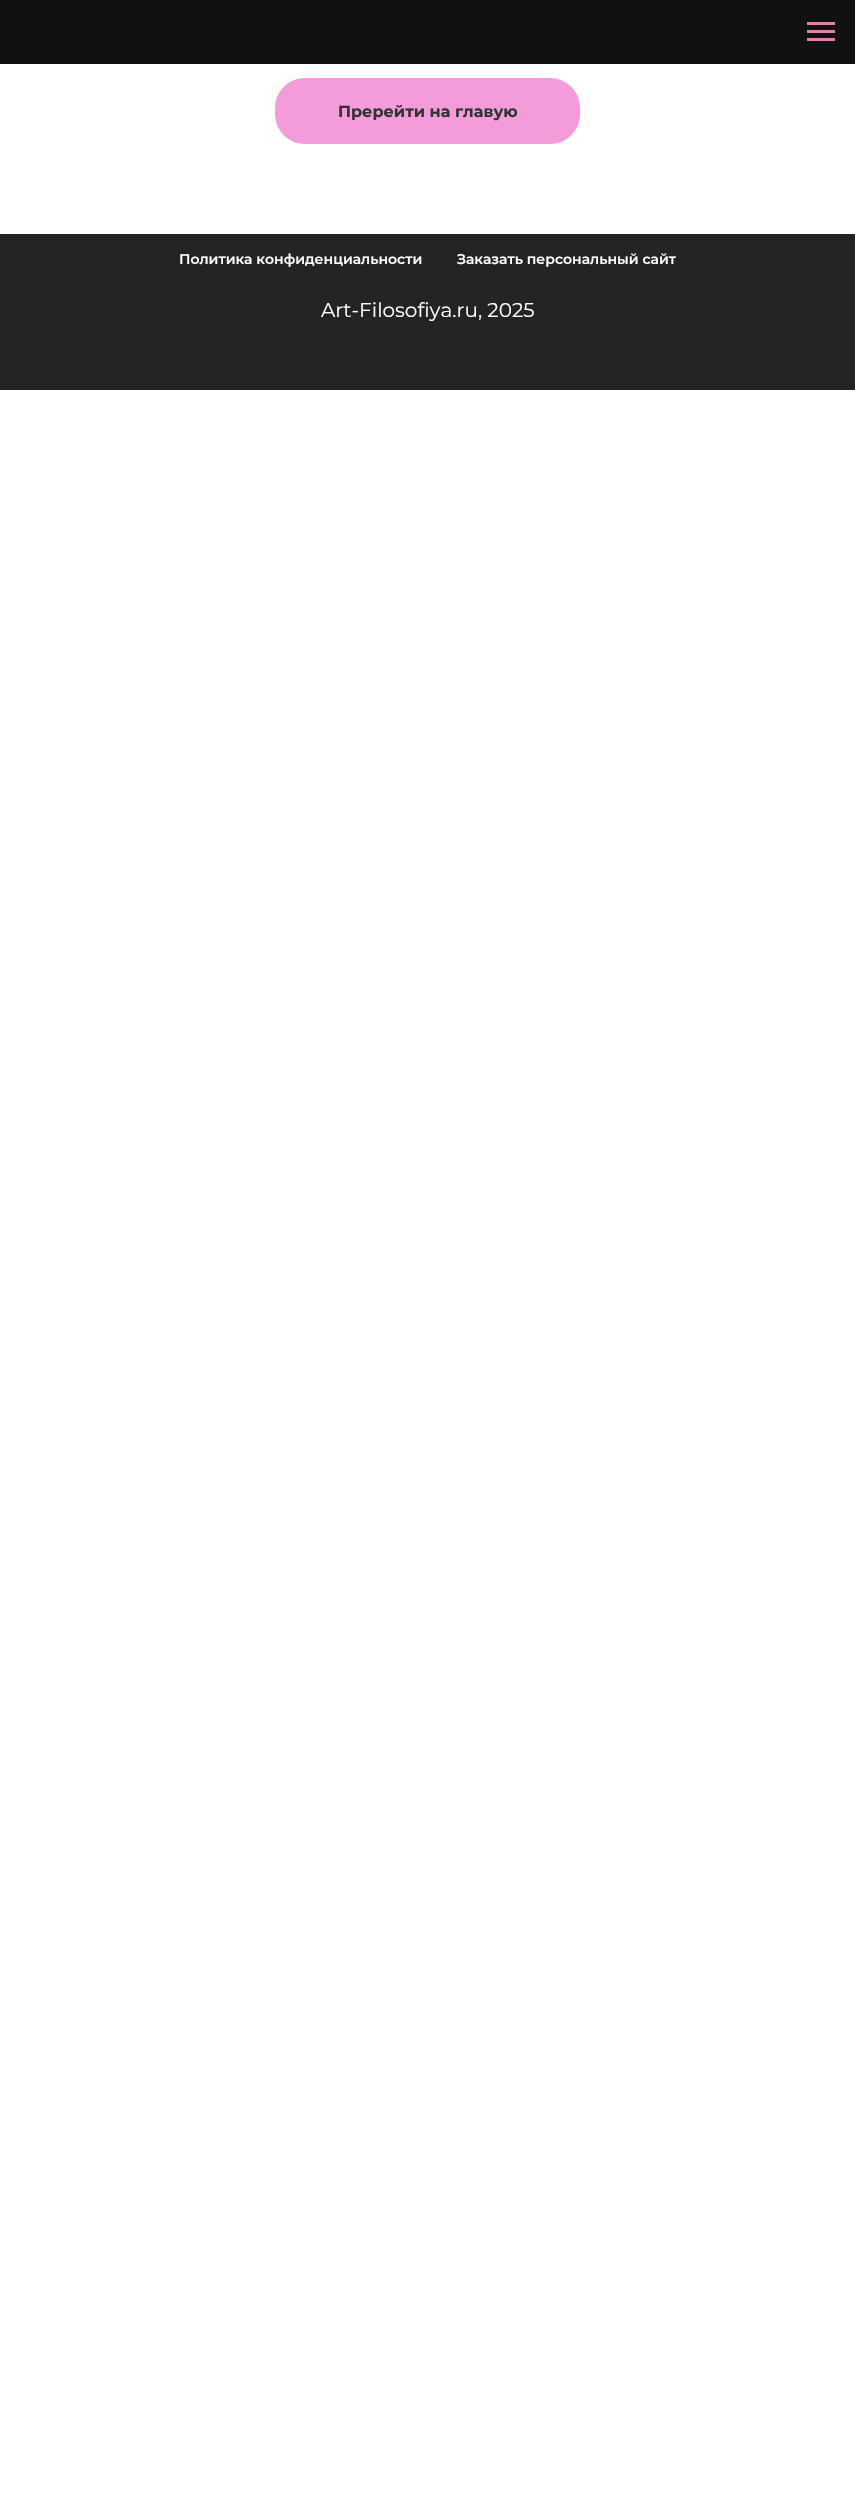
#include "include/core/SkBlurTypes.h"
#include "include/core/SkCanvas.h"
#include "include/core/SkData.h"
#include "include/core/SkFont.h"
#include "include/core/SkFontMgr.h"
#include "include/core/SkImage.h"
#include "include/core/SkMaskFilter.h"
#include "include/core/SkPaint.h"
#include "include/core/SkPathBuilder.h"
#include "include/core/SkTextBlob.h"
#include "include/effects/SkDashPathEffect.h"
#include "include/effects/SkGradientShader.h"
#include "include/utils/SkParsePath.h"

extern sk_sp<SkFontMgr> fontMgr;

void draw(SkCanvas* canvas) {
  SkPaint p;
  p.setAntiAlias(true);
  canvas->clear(SK_ColorWHITE);
  p.setColor(SkColorSetRGB(17, 17, 17));
  canvas->drawRect(SkRect::MakeLTRB(0, 0, 855, 64), p);
  p.setColor(SkColorSetRGB(221, 129, 168));
  canvas->drawRect(SkRect::MakeLTRB(807, 22, 835, 25), p);
  canvas->drawRect(SkRect::MakeLTRB(807, 30, 835, 33), p);
  canvas->drawRect(SkRect::MakeLTRB(807, 38, 835, 41), p);
  p.setColor(SkColorSetRGB(244, 156, 218));
  canvas->drawRoundRect(SkRect::MakeLTRB(276.5f, 79.5f, 578.5f, 142.5f), 28.5f, 28.5f, p);
  p.setStyle(SkPaint::kStroke_Style);
  p.setStrokeWidth(3);
  canvas->drawRoundRect(SkRect::MakeLTRB(276.5f, 79.5f, 578.5f, 142.5f), 28.5f, 28.5f, p);
  p.setStyle(SkPaint::kFill_Style);
  p.setColor(SkColorSetRGB(36, 36, 36));
  canvas->drawRect(SkRect::MakeLTRB(0, 234, 855, 390), p);
  SkFont font1(fontMgr->matchFamilyStyle("Montserrat", SkFontStyle::Bold()), 16);
  font1.setSubpixel(true);
  p.setColor(SkColorSetRGB(51, 51, 51));
  canvas->drawString("Пререйти на главую", 338, 117, font1, p);
  SkFont font2(fontMgr->matchFamilyStyle("Montserrat", SkFontStyle(600, SkFontStyle::kNormal_Width, SkFontStyle::kUpright_Slant)), 14);
  font2.setSubpixel(true);
  p.setColor(SK_ColorWHITE);
  canvas->drawString("Политика конфиденциальности", 179, 264, font2, p);
  canvas->drawString("Заказать персональный сайт", 457, 264, font2, p);
  SkFont font3(fontMgr->matchFamilyStyle("Montserrat", SkFontStyle::Normal()), 20);
  font3.setSubpixel(true);
  canvas->drawString("Art-Filosofiya.ru, 2025", 321, 317, font3, p);
}
